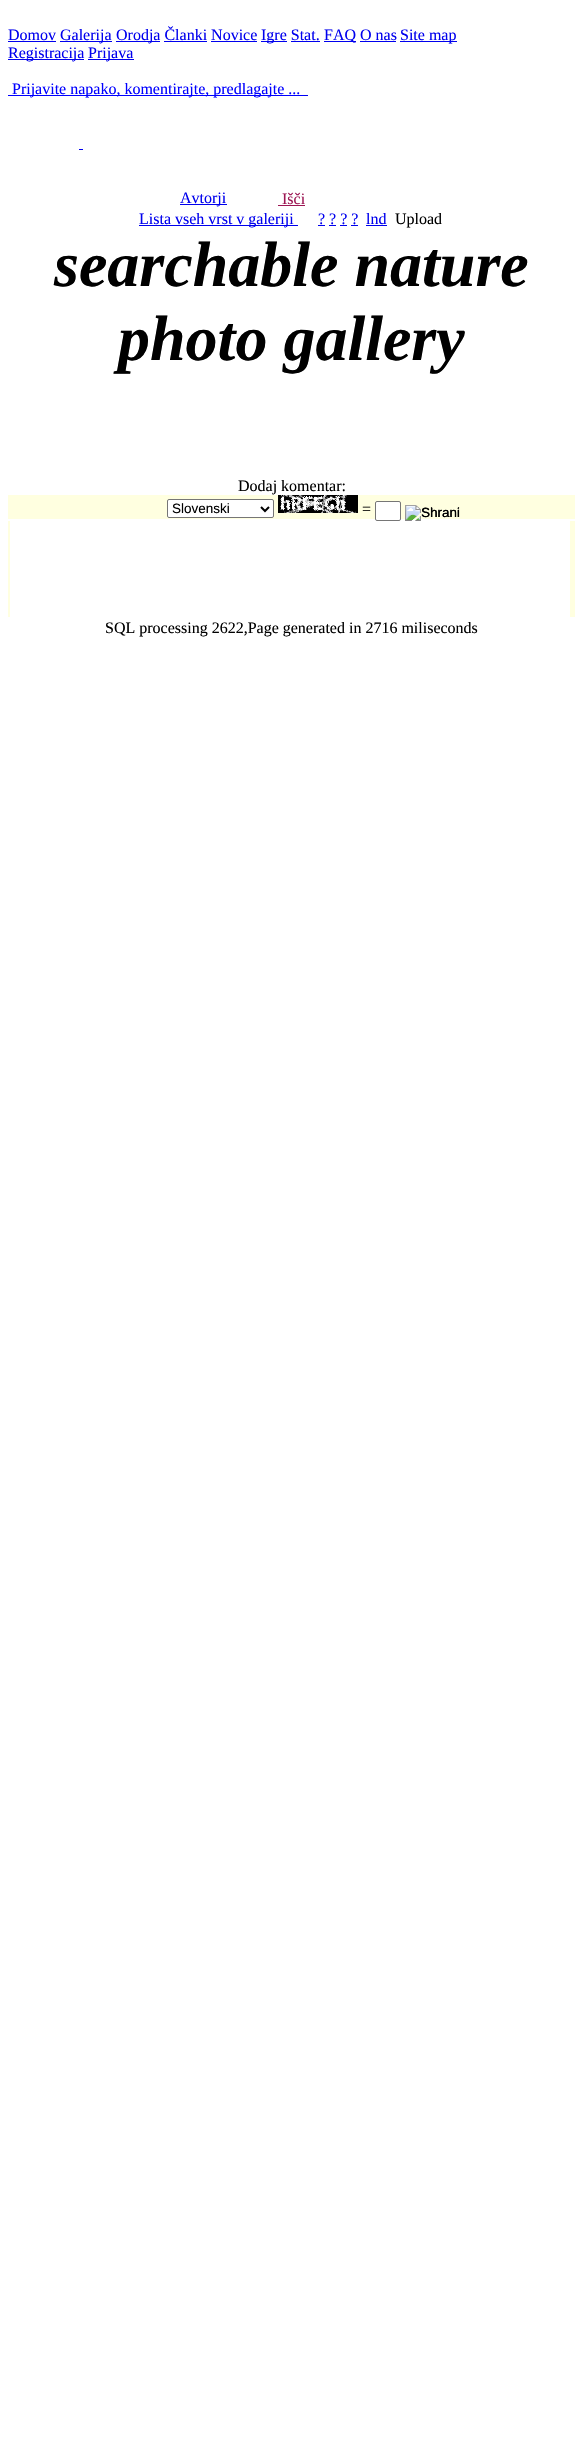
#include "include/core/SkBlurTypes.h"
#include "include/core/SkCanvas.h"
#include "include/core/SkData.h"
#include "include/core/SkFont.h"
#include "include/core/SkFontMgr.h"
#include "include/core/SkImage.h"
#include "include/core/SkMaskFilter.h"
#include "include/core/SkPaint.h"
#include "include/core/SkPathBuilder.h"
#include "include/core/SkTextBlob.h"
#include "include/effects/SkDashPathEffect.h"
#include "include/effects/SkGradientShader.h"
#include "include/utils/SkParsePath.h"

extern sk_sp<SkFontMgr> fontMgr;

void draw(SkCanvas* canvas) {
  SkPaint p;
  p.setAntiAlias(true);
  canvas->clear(SK_ColorWHITE);
  p.setColor(SkColorSetRGB(0, 0, 238));
  canvas->drawRect(SkRect::MakeLTRB(8, 41, 56, 42), p);
  canvas->drawRect(SkRect::MakeLTRB(60, 41, 112, 42), p);
  canvas->drawRect(SkRect::MakeLTRB(116, 41, 160, 42), p);
  canvas->drawRect(SkRect::MakeLTRB(261, 41, 287, 42), p);
  canvas->drawRect(SkRect::MakeLTRB(324, 41, 356, 42), p);
  canvas->drawRect(SkRect::MakeLTRB(400, 41, 457, 42), p);
  canvas->drawRect(SkRect::MakeLTRB(164, 41, 207, 42), p);
  canvas->drawRect(SkRect::MakeLTRB(211, 41, 257, 42), p);
  canvas->drawRect(SkRect::MakeLTRB(291, 41, 320, 42), p);
  canvas->drawRect(SkRect::MakeLTRB(360, 41, 396, 42), p);
  canvas->drawRect(SkRect::MakeLTRB(8, 59, 84, 60), p);
  canvas->drawRect(SkRect::MakeLTRB(88, 59, 134, 60), p);
  p.setColor(SkColorSetRGB(0, 0, 255));
  canvas->drawRect(SkRect::MakeLTRB(8, 95, 304, 96), p);
  p.setColor(SkColorSetRGB(0, 0, 238));
  canvas->drawRect(SkRect::MakeLTRB(304, 95, 308, 96), p);
  canvas->drawRect(SkRect::MakeLTRB(79, 149, 83, 150), p);
  canvas->drawRect(SkRect::MakeLTRB(180, 204, 227, 205), p);
  p.setColor(SkColorSetRGB(156, 22, 83));
  canvas->drawRect(SkRect::MakeLTRB(278, 205, 305, 206), p);
  p.setColor(SkColorSetRGB(0, 0, 238));
  canvas->drawRect(SkRect::MakeLTRB(139, 225, 298, 226), p);
  canvas->drawRect(SkRect::MakeLTRB(318, 225, 325, 226), p);
  canvas->drawRect(SkRect::MakeLTRB(366, 225, 387, 226), p);
  canvas->drawRect(SkRect::MakeLTRB(329, 225, 336, 226), p);
  canvas->drawRect(SkRect::MakeLTRB(340, 225, 347, 226), p);
  canvas->drawRect(SkRect::MakeLTRB(351, 225, 358, 226), p);
  p.setColor(SkColorSetRGB(255, 255, 224));
  canvas->drawRect(SkRect::MakeLTRB(8, 495, 575, 519), p);
  p.setColor(SK_ColorWHITE);
  canvas->drawRoundRect(SkRect::MakeLTRB(167.5f, 499.5f, 273.5f, 517.5f), 1.5f, 1.5f, p);
  p.setStyle(SkPaint::kStroke_Style);
  p.setStrokeWidth(1);
  p.setColor(SkColorSetRGB(118, 118, 118));
  canvas->drawRoundRect(SkRect::MakeLTRB(167.5f, 499.5f, 273.5f, 517.5f), 1.5f, 1.5f, p);
  p.setStrokeWidth(2);
  p.setColor(SK_ColorBLACK);
  canvas->drawPath(SkPathBuilder().moveTo(261, 507).lineTo(265, 511).lineTo(269, 507).detach(), p);
  canvas->drawImageRect(SkImages::DeferredFromEncodedData(SkData::MakeFromFileName("images/1.png")), SkRect::MakeLTRB(278, 495, 358, 513), SkSamplingOptions());
  p.setStyle(SkPaint::kFill_Style);
  p.setColor(SK_ColorWHITE);
  canvas->drawRoundRect(SkRect::MakeLTRB(375.5f, 501.5f, 400.5f, 520.5f), 1.5f, 1.5f, p);
  p.setStyle(SkPaint::kStroke_Style);
  p.setStrokeWidth(1);
  p.setColor(SkColorSetRGB(118, 118, 118));
  canvas->drawRoundRect(SkRect::MakeLTRB(375.5f, 501.5f, 400.5f, 520.5f), 1.5f, 1.5f, p);
  canvas->drawImageRect(SkImages::DeferredFromEncodedData(SkData::MakeFromFileName("images/2.png")), SkRect::MakeLTRB(405, 505, 459, 521), SkSamplingOptions());
  p.setStyle(SkPaint::kFill_Style);
  p.setColor(SkColorSetRGB(255, 255, 224));
  canvas->drawRect(SkRect::MakeLTRB(8, 521, 575, 617), p);
  p.setColor(SK_ColorWHITE);
  canvas->drawRect(SkRect::MakeLTRB(10, 521, 570, 617), p);
  SkFont font1(fontMgr->matchFamilyStyle("Liberation Serif", SkFontStyle::Normal()), 16);
  font1.setSubpixel(true);
  p.setColor(SkColorSetRGB(0, 0, 238));
  canvas->drawString("Domov", 8, 40, font1, p);
  canvas->drawString("Galerija", 60, 40, font1, p);
  canvas->drawString("Orodja Članki Novice", 116, 40, font1, p);
  canvas->drawString("Igre Stat.", 261, 40, font1, p);
  canvas->drawString("FAQ O nas", 324, 40, font1, p);
  canvas->drawString("Site map", 400, 40, font1, p);
  canvas->drawString("Registracija", 8, 58, font1, p);
  canvas->drawString("Prijava", 88, 58, font1, p);
  p.setColor(SkColorSetRGB(0, 0, 255));
  canvas->drawString("Prijavite napako, komentirajte, predlagajte ...", 12, 94, font1, p);
  p.setColor(SkColorSetRGB(0, 0, 238));
  canvas->drawString("Avtorji", 180, 203, font1, p);
  p.setColor(SkColorSetRGB(156, 22, 83));
  canvas->drawString("Išči", 282, 204, font1, p);
  p.setColor(SkColorSetRGB(0, 0, 238));
  canvas->drawString("Lista vseh vrst v galeriji", 139, 224, font1, p);
  canvas->drawString("? ? ? ?", 318, 224, font1, p);
  canvas->drawString("lnd", 366, 224, font1, p);
  p.setColor(SK_ColorBLACK);
  canvas->drawString("Upload", 395, 224, font1, p);
  SkFont font2(fontMgr->matchFamilyStyle("Liberation Serif", SkFontStyle::BoldItalic()), 64);
  font2.setSubpixel(true);
  canvas->drawString("searchable nature", 54, 286, font2, p);
  canvas->drawString("photo gallery", 118, 360, font2, p);
  canvas->drawString("Dodaj komentar:", 238, 491, font1, p);
  SkFont font3(fontMgr->matchFamilyStyle("Liberation Sans", SkFontStyle::Normal()), 13.5f);
  font3.setSubpixel(true);
  canvas->drawString("Slovenski", 172, 513, font3, p);
  canvas->drawString("=", 362, 514, font1, p);
  canvas->drawString("Shrani", 421, 517, font3, p);
  canvas->drawString("SQL processing 2622,Page generated in 2716 miliseconds", 105, 633, font1, p);
}
